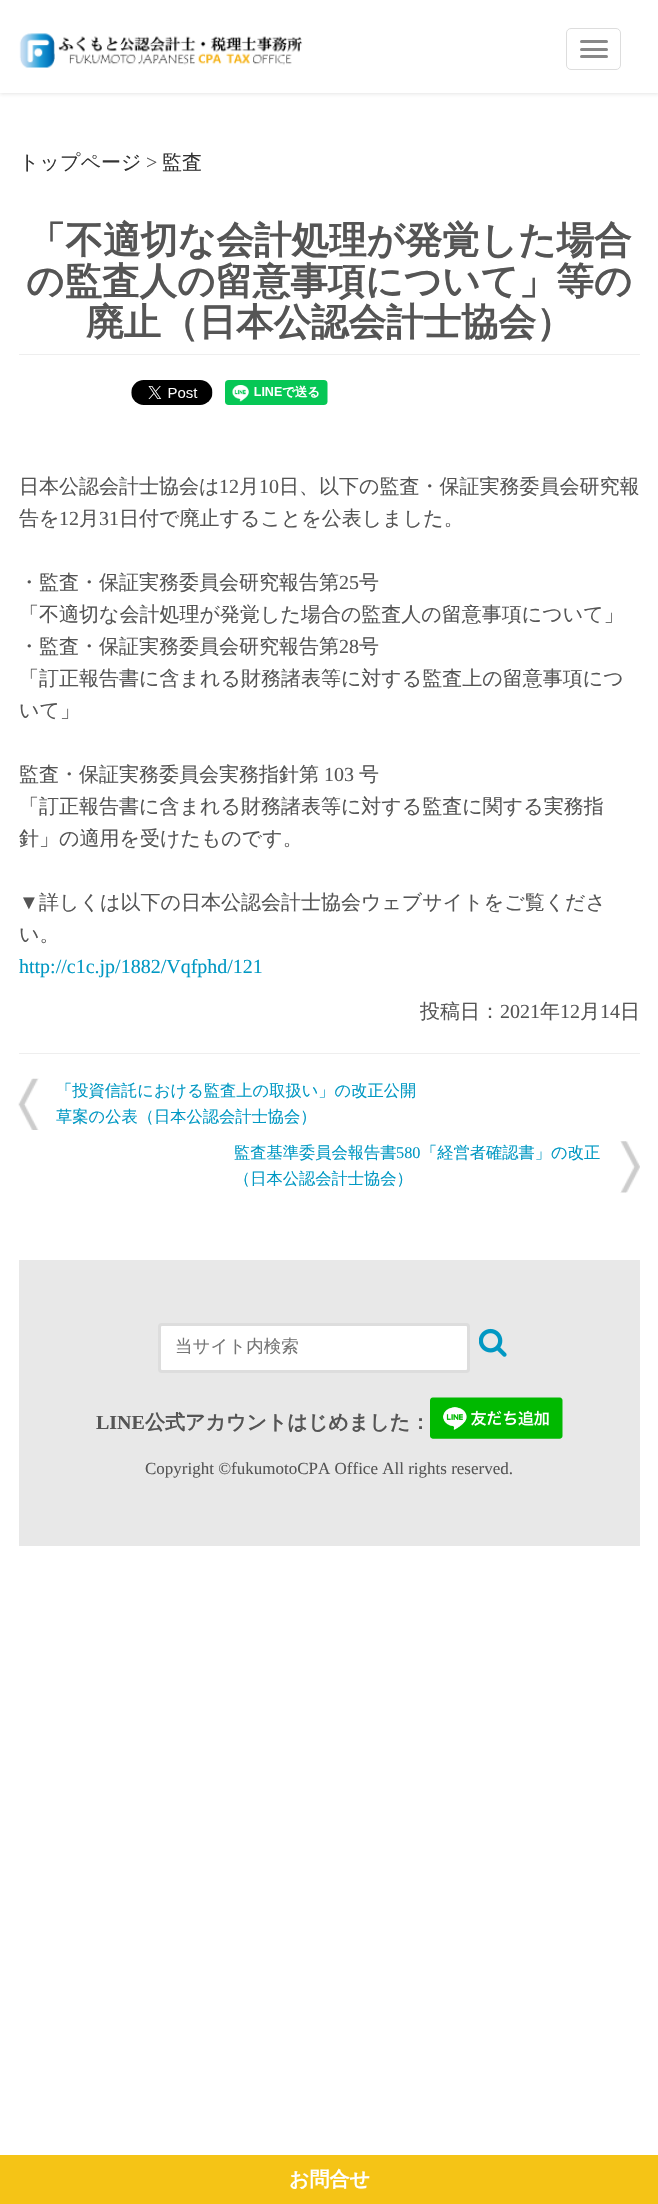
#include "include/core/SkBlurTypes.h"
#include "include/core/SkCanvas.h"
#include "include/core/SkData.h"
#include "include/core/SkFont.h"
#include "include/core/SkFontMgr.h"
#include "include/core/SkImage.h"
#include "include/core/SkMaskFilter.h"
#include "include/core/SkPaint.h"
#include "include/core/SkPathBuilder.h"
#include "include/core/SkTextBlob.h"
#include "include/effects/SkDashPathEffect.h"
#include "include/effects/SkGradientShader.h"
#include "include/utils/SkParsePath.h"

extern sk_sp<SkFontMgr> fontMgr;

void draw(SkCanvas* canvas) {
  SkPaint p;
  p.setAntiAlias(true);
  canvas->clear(SK_ColorWHITE);
  canvas->save();
  canvas->clipPath(SkPathBuilder(SkPathFillType::kEvenOdd).moveTo(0, 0).lineTo(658, 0).lineTo(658, 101).lineTo(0, 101).close().moveTo(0, 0).lineTo(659, 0).lineTo(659, 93).lineTo(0, 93).close().detach(), true);
  p.setColor(SkColorSetARGB(31, 41, 42, 43));
  p.setMaskFilter(SkMaskFilter::MakeBlur(kNormal_SkBlurStyle, 2));
  canvas->drawRect(SkRect::MakeLTRB(0, 1, 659, 94), p);
  p.setMaskFilter(nullptr);
  canvas->restore();
  p.setColor(SkColorSetARGB(230, 255, 255, 255));
  canvas->drawRect(SkRect::MakeLTRB(0, 92, 658, 93), p);
  canvas->drawImageRect(SkImages::DeferredFromEncodedData(SkData::MakeFromFileName("images/1.png")), SkRect::MakeLTRB(19, 33, 303, 68), SkSamplingOptions());
  p.setStyle(SkPaint::kStroke_Style);
  p.setStrokeWidth(1);
  p.setColor(SkColorSetRGB(221, 221, 221));
  canvas->drawRoundRect(SkRect::MakeLTRB(566.5f, 28.5f, 620.5f, 69.5f), 4.5f, 4.5f, p);
  p.setStyle(SkPaint::kFill_Style);
  p.setColor(SkColorSetRGB(136, 136, 136));
  canvas->drawRoundRect(SkRect::MakeLTRB(580, 40, 608, 43), 1.5f, 1.5f, p);
  canvas->drawRoundRect(SkRect::MakeLTRB(580, 48, 608, 51), 1.5f, 1.5f, p);
  canvas->drawRoundRect(SkRect::MakeLTRB(580, 55, 608, 58), 1.5f, 1.5f, p);
  p.setColor(SkColorSetRGB(238, 238, 238));
  canvas->drawRect(SkRect::MakeLTRB(19, 354, 640, 355), p);
  canvas->drawImageRect(SkImages::DeferredFromEncodedData(SkData::MakeFromFileName("images/2.png")), SkRect::MakeLTRB(131, 380, 213, 405), SkSamplingOptions());
  canvas->drawImageRect(SkImages::DeferredFromEncodedData(SkData::MakeFromFileName("images/3.png")), SkRect::MakeLTRB(225, 380, 328, 405), SkSamplingOptions());
  canvas->drawRect(SkRect::MakeLTRB(19, 1053, 640, 1054), p);
  canvas->drawImageRect(SkImages::DeferredFromEncodedData(SkData::MakeFromFileName("images/4.png")), SkRect::MakeLTRB(18, 1078, 39, 1130), SkSamplingOptions());
  canvas->drawImageRect(SkImages::DeferredFromEncodedData(SkData::MakeFromFileName("images/5.png")), SkRect::MakeLTRB(620, 1141, 640, 1193), SkSamplingOptions());
  p.setColor(SkColorSetRGB(232, 232, 232));
  canvas->drawRect(SkRect::MakeLTRB(19, 1260, 640, 1546), p);
  p.setColor(SK_ColorWHITE);
  canvas->drawRoundRect(SkRect::MakeLTRB(159.5f, 1324.5f, 468.5f, 1371.5f), 2.5f, 2.5f, p);
  p.setStyle(SkPaint::kStroke_Style);
  p.setStrokeWidth(3);
  p.setColor(SkColorSetRGB(221, 221, 221));
  canvas->drawRoundRect(SkRect::MakeLTRB(159.5f, 1324.5f, 468.5f, 1371.5f), 2.5f, 2.5f, p);
  canvas->drawImageRect(SkImages::DeferredFromEncodedData(SkData::MakeFromFileName("images/6.png")), SkRect::MakeLTRB(479, 1328, 507, 1357), SkSamplingOptions());
  canvas->drawImageRect(SkImages::DeferredFromEncodedData(SkData::MakeFromFileName("images/7.png")), SkRect::MakeLTRB(430, 1397, 563, 1439), SkSamplingOptions());
  p.setStyle(SkPaint::kFill_Style);
  p.setColor(SkColorSetRGB(245, 196, 22));
  canvas->drawRect(SkRect::MakeLTRB(0, 2155, 658, 2204), p);
  SkFont font1(fontMgr->matchFamilyStyle("WenQuanYi Zen Hei", SkFontStyle(500, SkFontStyle::kNormal_Width, SkFontStyle::kUpright_Slant)), 20);
  font1.setSubpixel(true);
  p.setColor(SkColorSetRGB(51, 51, 51));
  canvas->drawString("トップページ", 19, 169, font1, p);
  SkFont font2(fontMgr->matchFamilyStyle("Liberation Serif", SkFontStyle::Normal()), 20);
  font2.setSubpixel(true);
  p.setColor(SkColorSetRGB(85, 85, 85));
  canvas->drawString(">", 146, 169, font2, p);
  p.setColor(SkColorSetRGB(51, 51, 51));
  canvas->drawString("監査", 162, 169, font1, p);
  SkFont font3(fontMgr->matchFamilyStyle("WenQuanYi Zen Hei", SkFontStyle::Bold()), 37.5f);
  font3.setSubpixel(true);
  p.setColor(SkColorSetRGB(85, 85, 85));
  canvas->drawString("「不適切な会計処理が発覚した場合", 28, 253, font3, p);
  canvas->drawString("の監査人の留意事項について」等の", 26, 294, font3, p);
  canvas->drawString("廃止（日本公認会計士協会）", 86, 335, font3, p);
  canvas->drawString("日本公認会計士協会は", 19, 493, font1, p);
  canvas->drawString("12", 219, 493, font2, p);
  canvas->drawString("月", 239, 493, font1, p);
  canvas->drawString("10", 259, 493, font2, p);
  canvas->drawString("日、以下の監査・保証実務委員会研究報", 279, 493, font1, p);
  canvas->drawString("告を", 19, 525, font1, p);
  canvas->drawString("12", 59, 525, font2, p);
  canvas->drawString("月", 79, 525, font1, p);
  canvas->drawString("31", 99, 525, font2, p);
  canvas->drawString("日付で廃止することを公表しました。", 119, 525, font1, p);
  canvas->drawString("・監査・保証実務委員会研究報告第", 19, 589, font1, p);
  canvas->drawString("25", 339, 589, font2, p);
  canvas->drawString("号", 359, 589, font1, p);
  canvas->drawString("「不適切な会計処理が発覚した場合の監査人の留意事項について」", 19, 621, font1, p);
  canvas->drawString("・監査・保証実務委員会研究報告第", 19, 653, font1, p);
  canvas->drawString("28", 339, 653, font2, p);
  canvas->drawString("号", 359, 653, font1, p);
  canvas->drawString("「訂正報告書に含まれる財務諸表等に対する監査上の留意事項につ", 19, 685, font1, p);
  canvas->drawString("いて」", 19, 717, font1, p);
  canvas->drawString("監査・保証実務委員会実務指針第", 19, 781, font1, p);
  canvas->drawString("103", 324, 781, font2, p);
  canvas->drawString("号", 359, 781, font1, p);
  canvas->drawString("「訂正報告書に含まれる財務諸表等に対する監査に関する実務指", 19, 813, font1, p);
  canvas->drawString("針」の適用を受けたものです。", 19, 845, font1, p);
  canvas->drawString("▼", 19, 909, font2, p);
  canvas->drawString("詳しくは以下の日本公認会計士協会ウェブサイトをご覧くださ", 39, 909, font1, p);
  canvas->drawString("い。", 19, 941, font1, p);
  p.setColor(SkColorSetRGB(1, 152, 195));
  canvas->drawString("http://c1c.jp/1882/Vqfphd/121", 19, 973, font2, p);
  p.setColor(SkColorSetRGB(85, 85, 85));
  canvas->drawString("投稿日：", 420, 1018, font1, p);
  canvas->drawString("2021", 500, 1018, font2, p);
  canvas->drawString("年", 540, 1018, font1, p);
  canvas->drawString("12", 560, 1018, font2, p);
  canvas->drawString("月", 580, 1018, font1, p);
  canvas->drawString("14", 600, 1018, font2, p);
  canvas->drawString("日", 620, 1018, font1, p);
  SkFont font4(fontMgr->matchFamilyStyle("WenQuanYi Zen Hei", SkFontStyle(500, SkFontStyle::kNormal_Width, SkFontStyle::kUpright_Slant)), 16.25f);
  font4.setSubpixel(true);
  p.setColor(SkColorSetRGB(1, 152, 195));
  canvas->drawString("「投資信託における監査上の取扱い」の改正公開", 56, 1096, font4, p);
  canvas->drawString("草案の公表（日本公認会計士協会）", 56, 1122, font4, p);
  canvas->drawString("監査基準委員会報告書", 234, 1158, font4, p);
  SkFont font5(fontMgr->matchFamilyStyle("Liberation Serif", SkFontStyle::Normal()), 16.25f);
  font5.setSubpixel(true);
  canvas->drawString("580", 396, 1158, font5, p);
  canvas->drawString("「経営者確認書」の改正", 421, 1158, font4, p);
  canvas->drawString("（日本公認会計士協会）", 234, 1184, font4, p);
  SkFont font6(fontMgr->matchFamilyStyle("WenQuanYi Zen Hei", SkFontStyle(500, SkFontStyle::kNormal_Width, SkFontStyle::kUpright_Slant)), 17.5f);
  font6.setSubpixel(true);
  p.setColor(SkColorSetRGB(117, 117, 117));
  canvas->drawString("当サイト内検索", 175, 1352, font6, p);
  SkFont font7(fontMgr->matchFamilyStyle("Liberation Serif", SkFontStyle::Bold()), 20);
  font7.setSubpixel(true);
  p.setColor(SkColorSetRGB(85, 85, 85));
  canvas->drawString("LINE", 96, 1429, font7, p);
  SkFont font8(fontMgr->matchFamilyStyle("WenQuanYi Zen Hei", SkFontStyle::Bold()), 20);
  font8.setSubpixel(true);
  canvas->drawString("公式アカウントはじめました：", 145, 1429, font8, p);
  SkFont font9(fontMgr->matchFamilyStyle("Liberation Serif", SkFontStyle::Normal()), 17);
  font9.setSubpixel(true);
  canvas->drawString("Copyright ©fukumotoCPA Office All rights reserved.", 145, 1474, font9, p);
  p.setColor(SK_ColorWHITE);
  canvas->drawString("お問合せ", 289, 2186, font8, p);
}
